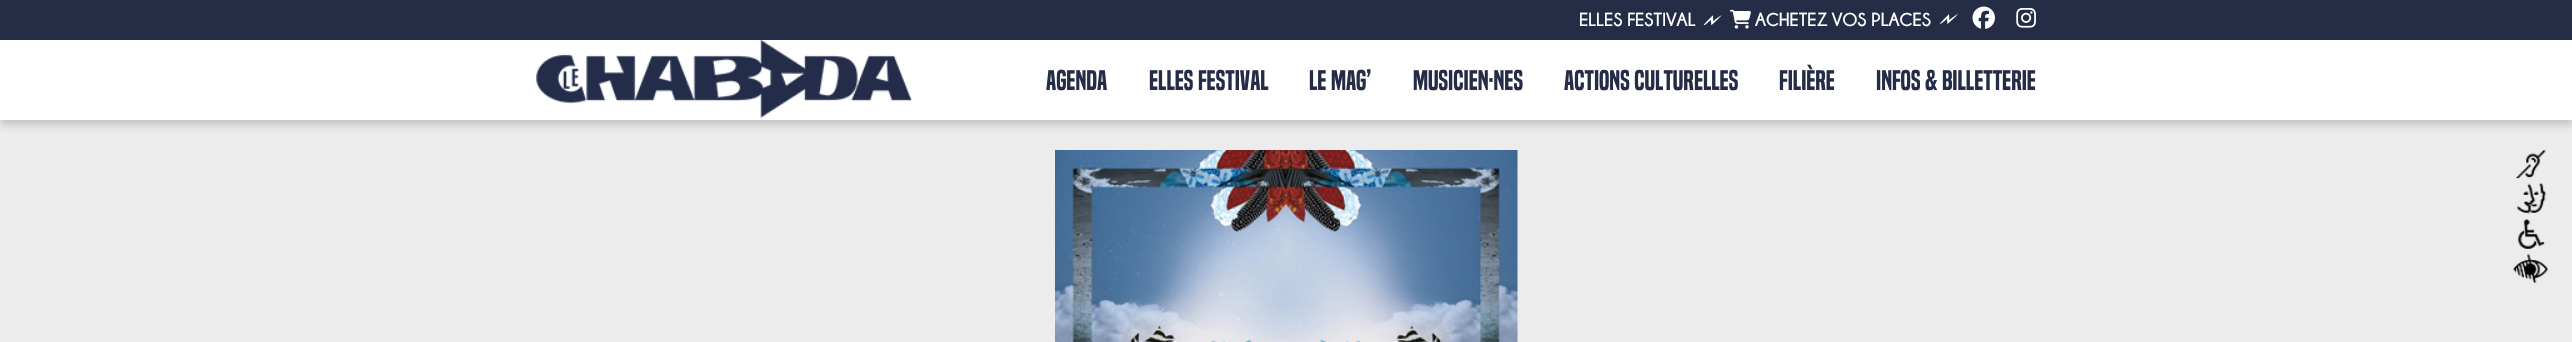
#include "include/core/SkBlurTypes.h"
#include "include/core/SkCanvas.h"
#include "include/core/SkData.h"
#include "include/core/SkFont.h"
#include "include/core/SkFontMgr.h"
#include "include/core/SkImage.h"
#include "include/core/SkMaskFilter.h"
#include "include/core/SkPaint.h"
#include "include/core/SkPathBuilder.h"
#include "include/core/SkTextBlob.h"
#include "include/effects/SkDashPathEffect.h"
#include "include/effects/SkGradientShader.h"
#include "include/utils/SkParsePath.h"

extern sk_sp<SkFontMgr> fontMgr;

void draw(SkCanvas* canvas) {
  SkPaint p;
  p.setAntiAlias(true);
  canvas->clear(SkColorSetRGB(237, 236, 237));
  p.setColor(SkColorSetARGB(77, 100, 100, 100));
  p.setMaskFilter(SkMaskFilter::MakeBlur(kNormal_SkBlurStyle, 4));
  canvas->drawRect(SkRect::MakeLTRB(0, 45, 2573, 125), p);
  p.setMaskFilter(nullptr);
  p.setColor(SkColorSetRGB(37, 44, 70));
  canvas->drawRect(SkRect::MakeLTRB(0, 0, 2572, 40), p);
  canvas->drawImageRect(SkImages::DeferredFromEncodedData(SkData::MakeFromFileName("images/1.png")), SkRect::MakeLTRB(1703, 15, 1722, 25), SkSamplingOptions());
  canvas->drawImageRect(SkImages::DeferredFromEncodedData(SkData::MakeFromFileName("images/2.png")), SkRect::MakeLTRB(1730, 9, 1751, 29), SkSamplingOptions());
  canvas->drawImageRect(SkImages::DeferredFromEncodedData(SkData::MakeFromFileName("images/3.png")), SkRect::MakeLTRB(1939, 13, 1958, 24), SkSamplingOptions());
  canvas->drawImageRect(SkImages::DeferredFromEncodedData(SkData::MakeFromFileName("images/4.png")), SkRect::MakeLTRB(1972, 6, 1995, 29), SkSamplingOptions());
  canvas->drawImageRect(SkImages::DeferredFromEncodedData(SkData::MakeFromFileName("images/5.png")), SkRect::MakeLTRB(2016, 8, 2036, 28), SkSamplingOptions());
  p.setColor(SK_ColorWHITE);
  canvas->drawRect(SkRect::MakeLTRB(0, 40, 2572, 120), p);
  canvas->drawImageRect(SkImages::DeferredFromEncodedData(SkData::MakeFromFileName("images/6.png")), SkRect::MakeLTRB(536, 40, 912, 118), SkSamplingOptions());
  canvas->drawImageRect(SkImages::DeferredFromEncodedData(SkData::MakeFromFileName("images/7.png")), SkRect::MakeLTRB(1055, 150, 1518, 342), SkSamplingOptions());
  canvas->drawImageRect(SkImages::DeferredFromEncodedData(SkData::MakeFromFileName("images/8.png")), SkRect::MakeLTRB(2513, 150, 2548, 283), SkSamplingOptions());
  SkFont font1(fontMgr->matchFamilyStyle("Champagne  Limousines", SkFontStyle::Bold()), 18.75f);
  font1.setSubpixel(true);
  canvas->drawString("ELLES FESTIVAL", 1579, 26, font1, p);
  canvas->drawString("ACHETEZ VOS PLACES", 1755, 26, font1, p);
  SkFont font2(fontMgr->matchFamilyStyle("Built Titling", SkFontStyle::Normal()), 26.25f);
  font2.setSubpixel(true);
  p.setColor(SkColorSetRGB(37, 44, 70));
  canvas->drawString("AGENDA", 1046, 90, font2, p);
  canvas->drawString("ELLES FESTIVAL", 1149, 90, font2, p);
  canvas->drawString("LE MAG’", 1309, 90, font2, p);
  canvas->drawString("MUSICIEN·NES", 1413, 90, font2, p);
  canvas->drawString("ACTIONS CULTURELLES", 1564, 90, font2, p);
  canvas->drawString("FILIÈRE", 1779, 90, font2, p);
  canvas->drawString("INFOS & BILLETTERIE", 1876, 90, font2, p);
}
